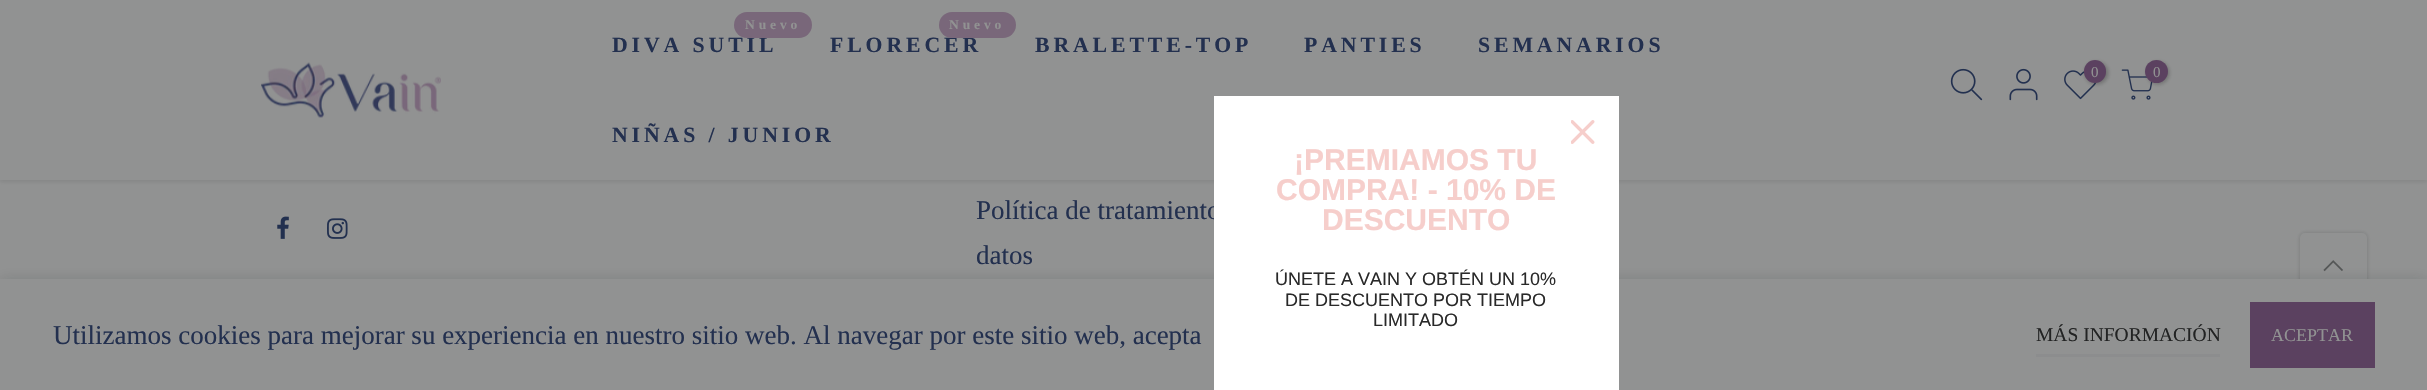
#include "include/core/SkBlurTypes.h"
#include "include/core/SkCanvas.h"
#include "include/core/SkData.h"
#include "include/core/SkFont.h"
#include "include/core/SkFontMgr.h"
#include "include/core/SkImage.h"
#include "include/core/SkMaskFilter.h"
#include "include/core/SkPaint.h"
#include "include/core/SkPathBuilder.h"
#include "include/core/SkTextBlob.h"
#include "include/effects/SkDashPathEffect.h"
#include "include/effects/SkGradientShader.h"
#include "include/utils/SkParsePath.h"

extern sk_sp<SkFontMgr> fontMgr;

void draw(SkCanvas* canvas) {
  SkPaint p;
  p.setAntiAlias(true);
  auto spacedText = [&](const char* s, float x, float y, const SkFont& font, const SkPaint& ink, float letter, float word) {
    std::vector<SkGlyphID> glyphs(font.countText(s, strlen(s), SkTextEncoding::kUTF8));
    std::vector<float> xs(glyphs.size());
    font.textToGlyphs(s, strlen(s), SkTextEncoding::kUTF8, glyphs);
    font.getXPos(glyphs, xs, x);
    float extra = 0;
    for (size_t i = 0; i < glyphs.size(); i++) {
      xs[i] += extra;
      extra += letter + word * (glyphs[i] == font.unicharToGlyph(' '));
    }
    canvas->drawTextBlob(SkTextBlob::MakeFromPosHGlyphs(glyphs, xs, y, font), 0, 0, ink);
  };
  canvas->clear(SkColorSetRGB(145, 146, 146));
  p.setColor(SkColorSetARGB(26, 17, 18, 18));
  p.setMaskFilter(SkMaskFilter::MakeBlur(kNormal_SkBlurStyle, 2));
  canvas->drawRect(SkRect::MakeLTRB(0, 2, 2427, 182), p);
  p.setMaskFilter(nullptr);
  p.setColor(SkColorSetRGB(145, 146, 146));
  canvas->drawRect(SkRect::MakeLTRB(0, 0, 2427, 180), p);
  canvas->drawImageRect(SkImages::DeferredFromEncodedData(SkData::MakeFromFileName("images/1.png")), SkRect::MakeLTRB(261, 62, 441, 118), SkSamplingOptions());
  canvas->drawImageRect(SkImages::DeferredFromEncodedData(SkData::MakeFromFileName("images/2.png")), SkRect::MakeLTRB(1950, 68, 1983, 101), SkSamplingOptions());
  canvas->drawImageRect(SkImages::DeferredFromEncodedData(SkData::MakeFromFileName("images/3.png")), SkRect::MakeLTRB(2009, 68, 2038, 101), SkSamplingOptions());
  canvas->drawImageRect(SkImages::DeferredFromEncodedData(SkData::MakeFromFileName("images/4.png")), SkRect::MakeLTRB(2064, 70, 2097, 100), SkSamplingOptions());
  p.setColor(SkColorSetARGB(77, 17, 18, 18));
  p.setMaskFilter(SkMaskFilter::MakeBlur(kNormal_SkBlurStyle, 2));
  canvas->drawRoundRect(SkRect::MakeLTRB(2085, 62, 2108, 84), 11, 11, p);
  p.setMaskFilter(nullptr);
  p.setColor(SkColorSetRGB(91, 65, 96));
  canvas->drawRoundRect(SkRect::MakeLTRB(2084, 60, 2106, 83), 11, 11, p);
  canvas->drawImageRect(SkImages::DeferredFromEncodedData(SkData::MakeFromFileName("images/5.png")), SkRect::MakeLTRB(2121, 69, 2153, 100), SkSamplingOptions());
  p.setColor(SkColorSetARGB(77, 17, 18, 18));
  p.setMaskFilter(SkMaskFilter::MakeBlur(kNormal_SkBlurStyle, 2));
  canvas->drawRoundRect(SkRect::MakeLTRB(2147, 62, 2169, 84), 11, 11, p);
  p.setMaskFilter(nullptr);
  p.setColor(SkColorSetRGB(91, 65, 96));
  canvas->drawCircle(2156.5f, 71.5f, 11.5f, p);
  canvas->drawImageRect(SkImages::DeferredFromEncodedData(SkData::MakeFromFileName("images/6.png")), SkRect::MakeLTRB(277, 216, 289, 239), SkSamplingOptions());
  canvas->drawImageRect(SkImages::DeferredFromEncodedData(SkData::MakeFromFileName("images/7.png")), SkRect::MakeLTRB(327, 218, 348, 239), SkSamplingOptions());
  p.setColor(SkColorSetARGB(51, 17, 18, 18));
  p.setMaskFilter(SkMaskFilter::MakeBlur(kNormal_SkBlurStyle, 2));
  canvas->drawRoundRect(SkRect::MakeLTRB(2300, 233, 2367, 300), 5, 5, p);
  p.setMaskFilter(nullptr);
  p.setColor(SkColorSetRGB(145, 146, 146));
  canvas->drawRoundRect(SkRect::MakeLTRB(2300, 233, 2367, 300), 5, 5, p);
  canvas->drawImageRect(SkImages::DeferredFromEncodedData(SkData::MakeFromFileName("images/9.png")), SkRect::MakeLTRB(2323, 260, 2343, 272), SkSamplingOptions());
  p.setColor(SkColorSetARGB(36, 17, 18, 18));
  p.setMaskFilter(SkMaskFilter::MakeBlur(kNormal_SkBlurStyle, 7));
  canvas->drawRect(SkRect::MakeLTRB(0, 279, 2427, 390), p);
  p.setMaskFilter(nullptr);
  p.setColor(SkColorSetRGB(145, 146, 146));
  canvas->drawRect(SkRect::MakeLTRB(0, 279, 2427, 390), p);
  p.setColor(SkColorSetRGB(140, 141, 142));
  canvas->drawRect(SkRect::MakeLTRB(2036, 354, 2220, 357), p);
  p.setColor(SkColorSetRGB(91, 65, 96));
  canvas->drawRect(SkRect::MakeLTRB(2250, 302, 2375, 368), p);
  SkFont font1(fontMgr->matchFamilyStyle("Liberation Serif", SkFontStyle::Bold()), 21.75f);
  font1.setSubpixel(true);
  p.setColor(SkColorSetRGB(35, 48, 79));
  spacedText("DIVA SUTIL", 612, 52, font1, p, 3.9f, 0);
  p.setColor(SkColorSetRGB(121, 103, 122));
  canvas->drawRoundRect(SkRect::MakeLTRB(734, 12, 812, 38), 13, 13, p);
  SkFont font2(fontMgr->matchFamilyStyle("Liberation Serif", SkFontStyle::Bold()), 13.5f);
  font2.setSubpixel(true);
  p.setColor(SkColorSetRGB(145, 146, 146));
  spacedText("Nuevo", 745, 29, font2, p, 3.9f, 0);
  p.setColor(SkColorSetRGB(35, 48, 79));
  spacedText("FLORECER", 830, 52, font1, p, 3.9f, 0);
  p.setColor(SkColorSetRGB(121, 103, 122));
  canvas->drawRoundRect(SkRect::MakeLTRB(939, 12, 1016, 38), 13, 13, p);
  p.setColor(SkColorSetRGB(145, 146, 146));
  spacedText("Nuevo", 949, 29, font2, p, 3.9f, 0);
  p.setColor(SkColorSetRGB(35, 48, 79));
  spacedText("BRALETTE-TOP", 1035, 52, font1, p, 3.9f, 0);
  spacedText("PANTIES", 1304, 52, font1, p, 3.9f, 0);
  spacedText("SEMANARIOS", 1478, 52, font1, p, 3.9f, 0);
  spacedText("NIÑAS / JUNIOR", 612, 142, font1, p, 3.9f, 0);
  SkFont font3(fontMgr->matchFamilyStyle("Liberation Serif", SkFontStyle::Normal()), 15);
  font3.setSubpixel(true);
  p.setColor(SkColorSetRGB(145, 146, 146));
  canvas->drawString("0", 2091, 77, font3, p);
  canvas->drawString("0", 2153, 77, font3, p);
  SkFont font4(fontMgr->matchFamilyStyle("Liberation Serif", SkFontStyle::Normal()), 27);
  font4.setSubpixel(true);
  p.setColor(SkColorSetRGB(35, 48, 79));
  canvas->drawString("Política de tratamiento", 976, 219, font4, p);
  canvas->drawString("datos", 976, 264, font4, p);
  p.setColor(SK_ColorWHITE);
  canvas->drawRect(SkRect::MakeLTRB(1214, 96, 1619, 390), p);
  canvas->drawImageRect(SkImages::DeferredFromEncodedData(SkData::MakeFromFileName("images/8.png")), SkRect::MakeLTRB(1571, 120, 1595, 144), SkSamplingOptions());
  SkFont font5(fontMgr->matchFamilyStyle("Liberation Sans", SkFontStyle::Bold()), 30);
  font5.setSubpixel(true);
  p.setColor(SkColorSetRGB(246, 206, 203));
  canvas->drawString("¡PREMIAMOS TU", 1294, 170, font5, p);
  canvas->drawString("COMPRA! - 10% DE", 1276, 200, font5, p);
  canvas->drawString("DESCUENTO", 1322, 230, font5, p);
  SkFont font6(fontMgr->matchFamilyStyle("Liberation Sans", SkFontStyle::Normal()), 18);
  font6.setSubpixel(true);
  p.setColor(SkColorSetRGB(41, 41, 41));
  canvas->drawString("ÚNETE A VAIN Y OBTÉN UN 10%", 1275, 285, font6, p);
  canvas->drawString("DE DESCUENTO POR TIEMPO", 1285, 306, font6, p);
  canvas->drawString("LIMITADO", 1373, 326, font6, p);
  p.setColor(SkColorSetRGB(35, 48, 79));
  canvas->drawString("Utilizamos cookies para mejorar su experiencia en nuestro sitio web. Al navegar por este sitio web, acepta", 53, 344, font4, p);
  SkFont font7(fontMgr->matchFamilyStyle("Liberation Serif", SkFontStyle::Normal()), 19.5f);
  font7.setSubpixel(true);
  p.setColor(SkColorSetRGB(34, 35, 35));
  canvas->drawString("MÁS INFORMACIÓN", 2036, 341, font7, p);
  SkFont font8(fontMgr->matchFamilyStyle("Liberation Serif", SkFontStyle::Normal()), 18);
  font8.setSubpixel(true);
  p.setColor(SkColorSetRGB(145, 146, 146));
  canvas->drawString("ACEPTAR", 2271, 341, font8, p);
}
